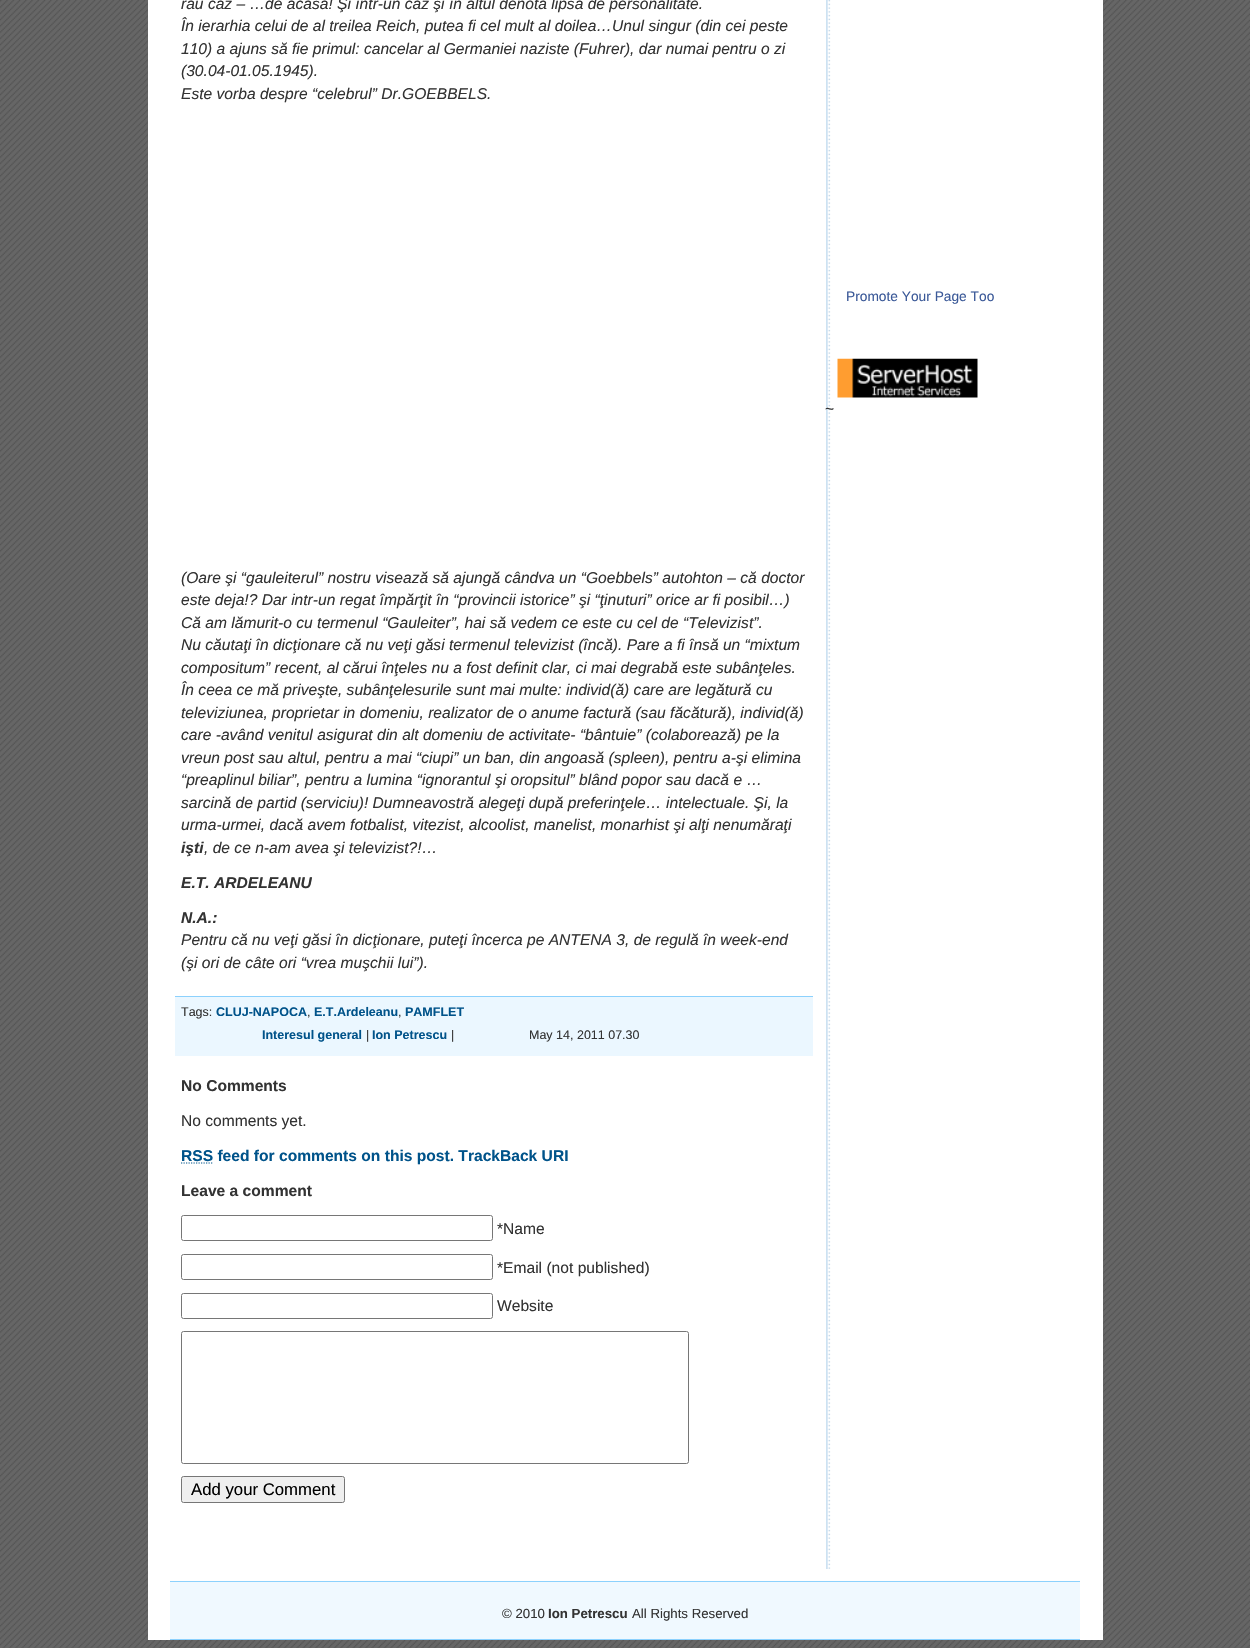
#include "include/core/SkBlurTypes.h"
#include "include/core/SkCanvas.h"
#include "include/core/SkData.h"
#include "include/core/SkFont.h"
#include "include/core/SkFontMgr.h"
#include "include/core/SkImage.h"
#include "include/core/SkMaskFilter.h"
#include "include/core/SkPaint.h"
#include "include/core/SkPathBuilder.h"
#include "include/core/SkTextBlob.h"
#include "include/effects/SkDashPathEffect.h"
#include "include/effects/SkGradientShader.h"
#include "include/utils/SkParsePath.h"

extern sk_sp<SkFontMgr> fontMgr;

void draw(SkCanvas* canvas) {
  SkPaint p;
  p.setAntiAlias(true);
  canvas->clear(SK_ColorWHITE);
  canvas->drawImageRect(SkImages::DeferredFromEncodedData(SkData::MakeFromFileName("images/1.png")), SkRect::MakeLTRB(0, 0, 1250, 1648), SkSamplingOptions());
  p.setColor(SK_ColorWHITE);
  canvas->drawRect(SkRect::MakeLTRB(148, 0, 1103, 1640), p);
  canvas->drawImageRect(SkImages::DeferredFromEncodedData(SkData::MakeFromFileName("images/2.png")), SkRect::MakeLTRB(826, 0, 831, 1569), SkSamplingOptions());
  p.setColor(SkColorSetRGB(235, 247, 255));
  canvas->drawRect(SkRect::MakeLTRB(175, 997, 813, 1056), p);
  p.setColor(SkColorSetRGB(140, 209, 253));
  canvas->drawRect(SkRect::MakeLTRB(175, 996, 813, 997), p);
  p.setStyle(SkPaint::kStroke_Style);
  p.setStrokeWidth(1.2f);
  p.setColor(SkColorSetRGB(0, 83, 138));
  p.setPathEffect(SkDashPathEffect::Make({{1.25f, 1.25f}}, 0));
  canvas->drawPath(SkPathBuilder().moveTo(181, 1163).lineTo(213.5f, 1163).detach(), p);
  p.setPathEffect(nullptr);
  p.setStrokeWidth(1);
  p.setColor(SkColorSetRGB(118, 118, 118));
  canvas->drawRoundRect(SkRect::MakeLTRB(181.5f, 1215.5f, 492.5f, 1240.5f), 2, 2, p);
  canvas->drawRoundRect(SkRect::MakeLTRB(181.5f, 1254.5f, 492.5f, 1279.5f), 2, 2, p);
  canvas->drawRoundRect(SkRect::MakeLTRB(181.5f, 1293.5f, 492.5f, 1318.5f), 2, 2, p);
  canvas->drawRoundRect(SkRect::MakeLTRB(181.5f, 1331.5f, 688.5f, 1463.5f), 2, 2, p);
  p.setStyle(SkPaint::kFill_Style);
  p.setColor(SkColorSetRGB(239, 239, 239));
  canvas->drawRoundRect(SkRect::MakeLTRB(181.5f, 1476.5f, 344.5f, 1502.5f), 2, 2, p);
  p.setStyle(SkPaint::kStroke_Style);
  p.setColor(SkColorSetRGB(118, 118, 118));
  canvas->drawRoundRect(SkRect::MakeLTRB(181.5f, 1476.5f, 344.5f, 1502.5f), 2, 2, p);
  canvas->drawImageRect(SkImages::DeferredFromEncodedData(SkData::MakeFromFileName("images/3.png")), SkRect::MakeLTRB(837, 358, 978, 398), SkSamplingOptions());
  p.setStyle(SkPaint::kFill_Style);
  p.setColor(SkColorSetRGB(240, 249, 255));
  canvas->drawRect(SkRect::MakeLTRB(170, 1582, 1080, 1639), p);
  p.setColor(SkColorSetRGB(140, 209, 253));
  canvas->drawRect(SkRect::MakeLTRB(170, 1581, 1080, 1582), p);
  canvas->drawRect(SkRect::MakeLTRB(170, 1639, 1080, 1640), p);
  SkFont font1(fontMgr->matchFamilyStyle("Liberation Sans", SkFontStyle::Italic()), 15.6f);
  font1.setSubpixel(true);
  p.setColor(SkColorSetRGB(51, 51, 51));
  canvas->drawString("rău caz – …de acasă! Şi într-un caz şi în altul denotă lipsă de personalitate.", 181, 9, font1, p);
  canvas->drawString("În ierarhia celui de al treilea Reich, putea fi cel mult al doilea…Unul singur (din cei peste", 181, 31, font1, p);
  canvas->drawString("110) a ajuns să fie primul: cancelar al Germaniei naziste (Fuhrer), dar numai pentru o zi", 181, 54, font1, p);
  canvas->drawString("(30.04-01.05.1945).", 181, 76, font1, p);
  canvas->drawString("Este vorba despre “celebrul” Dr.GOEBBELS.", 181, 99, font1, p);
  canvas->drawString("(Oare şi “gauleiterul” nostru visează să ajungă cândva un “Goebbels” autohton – că doctor", 181, 583, font1, p);
  canvas->drawString("este deja!? Dar intr-un regat împărţit în “provincii istorice” şi “ţinuturi” orice ar fi posibil…)", 181, 605, font1, p);
  canvas->drawString("Că am lămurit-o cu termenul “Gauleiter”, hai să vedem ce este cu cel de “Televizist”.", 181, 628, font1, p);
  canvas->drawString("Nu căutaţi în dicţionare că nu veţi găsi termenul televizist (încă). Pare a fi însă un “mixtum", 181, 650, font1, p);
  canvas->drawString("compositum” recent, al cărui înţeles nu a fost definit clar, ci mai degrabă este subânţeles.", 181, 673, font1, p);
  canvas->drawString("În ceea ce mă priveşte, subânţelesurile sunt mai multe: individ(ă) care are legătură cu", 181, 695, font1, p);
  canvas->drawString("televiziunea, proprietar in domeniu, realizator de o anume factură (sau făcătură), individ(ă)", 181, 718, font1, p);
  canvas->drawString("care -având venitul asigurat din alt domeniu de activitate- “bântuie” (colaborează) pe la", 181, 740, font1, p);
  canvas->drawString("vreun post sau altul, pentru a mai “ciupi” un ban, din angoasă (spleen), pentru a-şi elimina", 181, 763, font1, p);
  canvas->drawString("“preaplinul biliar”, pentru a lumina “ignorantul şi oropsitul” blând popor sau dacă e …", 181, 785, font1, p);
  canvas->drawString("sarcină de partid (serviciu)! Dumneavostră alegeţi după preferinţele…", 181, 808, font1, p);
  canvas->drawString("intelectuale. Şi, la", 666, 808, font1, p);
  canvas->drawString("urma-urmei, dacă avem fotbalist, vitezist, alcoolist, manelist, monarhist şi alţi nenumăraţi", 181, 830, font1, p);
  SkFont font2(fontMgr->matchFamilyStyle("Liberation Sans", SkFontStyle::BoldItalic()), 15.6f);
  font2.setSubpixel(true);
  canvas->drawString("işti", 181, 853, font2, p);
  canvas->drawString(", de ce n-am avea şi televizist?!…", 204, 853, font1, p);
  canvas->drawString("E.T. ARDELEANU", 181, 888, font2, p);
  canvas->drawString("N.A.:", 181, 923, font2, p);
  canvas->drawString("Pentru că nu veţi găsi în dicţionare, puteţi încerca pe ANTENA 3, de regulă în week-end", 181, 945, font1, p);
  canvas->drawString("(şi ori de câte ori “vrea muşchii lui”).", 181, 968, font1, p);
  SkFont font3(fontMgr->matchFamilyStyle("Liberation Sans", SkFontStyle::Normal()), 12.5f);
  font3.setSubpixel(true);
  canvas->drawString("Tags:", 181, 1016, font3, p);
  SkFont font4(fontMgr->matchFamilyStyle("Liberation Sans", SkFontStyle::Bold()), 12.5f);
  font4.setSubpixel(true);
  p.setColor(SkColorSetRGB(0, 83, 138));
  canvas->drawString("CLUJ-NAPOCA", 216, 1016, font4, p);
  p.setColor(SkColorSetRGB(51, 51, 51));
  canvas->drawString(",", 307, 1016, font3, p);
  p.setColor(SkColorSetRGB(0, 83, 138));
  canvas->drawString("E.T.Ardeleanu", 314, 1016, font4, p);
  p.setColor(SkColorSetRGB(51, 51, 51));
  canvas->drawString(",", 398, 1016, font3, p);
  p.setColor(SkColorSetRGB(0, 83, 138));
  canvas->drawString("PAMFLET", 405, 1016, font4, p);
  canvas->drawString("Interesul general", 262, 1039, font4, p);
  p.setColor(SkColorSetRGB(51, 51, 51));
  canvas->drawString("|", 366, 1039, font3, p);
  p.setColor(SkColorSetRGB(0, 83, 138));
  canvas->drawString("Ion Petrescu", 372, 1039, font4, p);
  p.setColor(SkColorSetRGB(51, 51, 51));
  canvas->drawString("|", 451, 1039, font3, p);
  canvas->drawString("May 14, 2011 07.30", 529, 1039, font3, p);
  SkFont font5(fontMgr->matchFamilyStyle("Liberation Sans", SkFontStyle::Bold()), 15.6f);
  font5.setSubpixel(true);
  canvas->drawString("No Comments", 181, 1091, font5, p);
  SkFont font6(fontMgr->matchFamilyStyle("Liberation Sans", SkFontStyle::Normal()), 15.6f);
  font6.setSubpixel(true);
  canvas->drawString("No comments yet.", 181, 1126, font6, p);
  p.setColor(SkColorSetRGB(0, 83, 138));
  canvas->drawString("RSS feed for comments on this post. TrackBack URI", 181, 1161, font5, p);
  p.setColor(SkColorSetRGB(51, 51, 51));
  canvas->drawString("Leave a comment", 181, 1196, font5, p);
  canvas->drawString("*Name", 497, 1234, font6, p);
  canvas->drawString("*Email (not published)", 497, 1273, font6, p);
  canvas->drawString("Website", 497, 1311, font6, p);
  SkFont font7(fontMgr->matchFamilyStyle("Liberation Sans", SkFontStyle::Normal()), 16.75f);
  font7.setSubpixel(true);
  p.setColor(SK_ColorBLACK);
  canvas->drawString("Add your Comment", 191, 1495, font7, p);
  SkFont font8(fontMgr->matchFamilyStyle("Liberation Sans", SkFontStyle::Normal()), 13.75f);
  font8.setSubpixel(true);
  p.setColor(SkColorSetRGB(59, 89, 152));
  canvas->drawString("Promote Your Page Too", 846, 301, font8, p);
  p.setColor(SkColorSetRGB(51, 51, 51));
  canvas->drawString("~", 825, 414, font6, p);
  SkFont font9(fontMgr->matchFamilyStyle("Liberation Sans", SkFontStyle::Normal()), 13.25f);
  font9.setSubpixel(true);
  canvas->drawString("© 2010", 502, 1618, font9, p);
  SkFont font10(fontMgr->matchFamilyStyle("Liberation Sans", SkFontStyle::Bold()), 13.25f);
  font10.setSubpixel(true);
  canvas->drawString("Ion Petrescu", 548, 1618, font10, p);
  canvas->drawString("All Rights Reserved", 632, 1618, font9, p);
}
